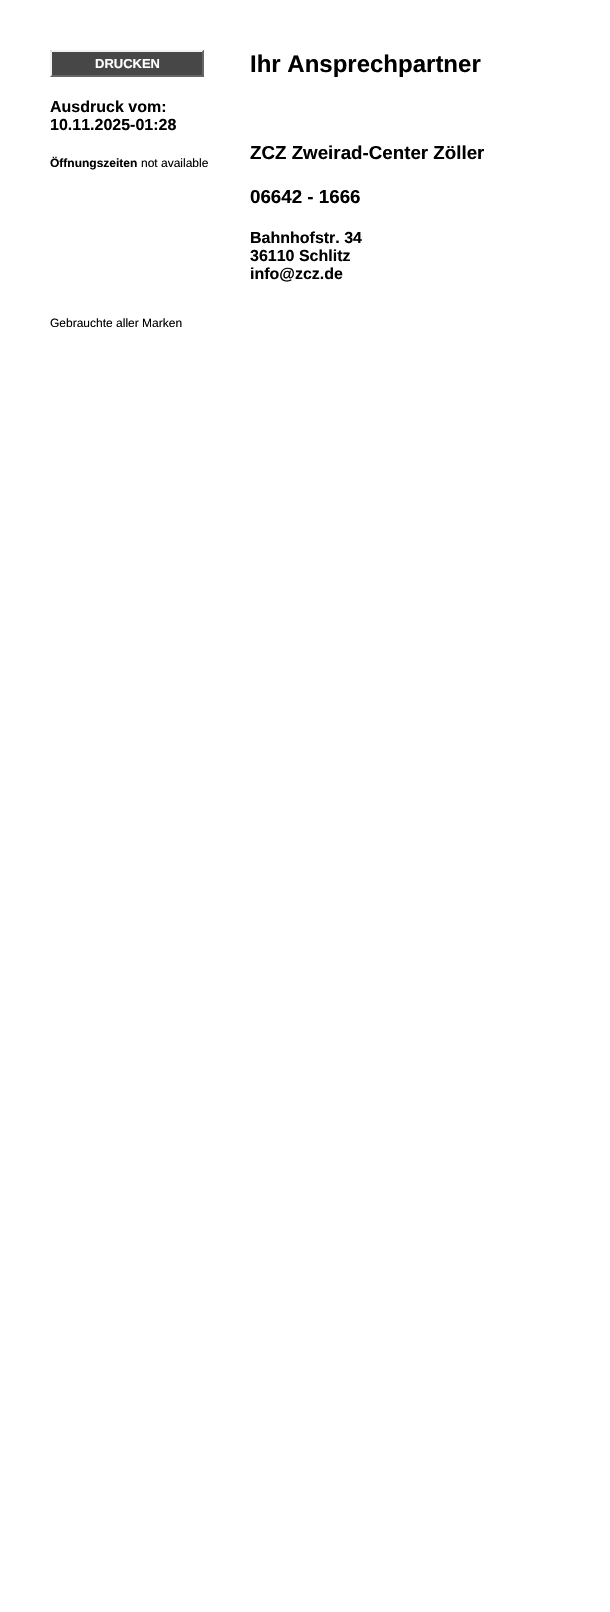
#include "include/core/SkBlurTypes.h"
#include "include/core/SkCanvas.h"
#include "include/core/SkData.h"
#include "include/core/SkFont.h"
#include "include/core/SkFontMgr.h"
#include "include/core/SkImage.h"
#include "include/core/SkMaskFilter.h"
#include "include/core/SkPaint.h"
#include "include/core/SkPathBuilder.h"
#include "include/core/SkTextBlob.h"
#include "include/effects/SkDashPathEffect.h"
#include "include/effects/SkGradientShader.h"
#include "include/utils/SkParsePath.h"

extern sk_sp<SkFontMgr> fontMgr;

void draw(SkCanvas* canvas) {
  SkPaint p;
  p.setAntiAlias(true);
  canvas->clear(SK_ColorWHITE);
  p.setColor(SkColorSetRGB(71, 71, 71));
  canvas->drawRect(SkRect::MakeLTRB(50, 50, 204, 77), p);
  p.setColor(SkColorSetRGB(241, 241, 241));
  canvas->drawPath(SkPathBuilder().moveTo(50, 50).lineTo(204, 50).lineTo(202, 52).lineTo(52, 52).close().detach(), p);
  p.setColor(SkColorSetRGB(102, 102, 102));
  canvas->drawPath(SkPathBuilder().moveTo(204, 50).lineTo(204, 77).lineTo(202, 75).lineTo(202, 52).close().detach(), p);
  canvas->drawPath(SkPathBuilder().moveTo(204, 77).lineTo(50, 77).lineTo(52, 75).lineTo(202, 75).close().detach(), p);
  p.setColor(SkColorSetRGB(241, 241, 241));
  canvas->drawPath(SkPathBuilder().moveTo(50, 77).lineTo(50, 50).lineTo(52, 52).lineTo(52, 75).close().detach(), p);
  SkFont font1(fontMgr->matchFamilyStyle("Liberation Sans", SkFontStyle::Bold()), 13);
  font1.setSubpixel(true);
  p.setColor(SK_ColorWHITE);
  canvas->drawString("DRUCKEN", 95, 68, font1, p);
  SkFont font2(fontMgr->matchFamilyStyle("Liberation Sans", SkFontStyle::Bold()), 16);
  font2.setSubpixel(true);
  p.setColor(SK_ColorBLACK);
  canvas->drawString("Ausdruck vom:", 50, 112, font2, p);
  canvas->drawString("10.11.2025-01:28", 50, 130, font2, p);
  SkFont font3(fontMgr->matchFamilyStyle("Liberation Sans", SkFontStyle::Bold()), 12);
  font3.setSubpixel(true);
  canvas->drawString("Öffnungszeiten", 50, 167, font3, p);
  SkFont font4(fontMgr->matchFamilyStyle("Liberation Sans", SkFontStyle::Normal()), 12);
  font4.setSubpixel(true);
  canvas->drawString("not available", 141, 167, font4, p);
  SkFont font5(fontMgr->matchFamilyStyle("Liberation Sans", SkFontStyle::Bold()), 24);
  font5.setSubpixel(true);
  canvas->drawString("Ihr Ansprechpartner", 250, 72, font5, p);
  SkFont font6(fontMgr->matchFamilyStyle("Liberation Sans", SkFontStyle::Bold()), 18.75f);
  font6.setSubpixel(true);
  canvas->drawString("ZCZ Zweirad-Center Zöller", 250, 159, font6, p);
  canvas->drawString("06642 - 1666", 250, 203, font6, p);
  canvas->drawString("Bahnhofstr. 34", 250, 243, font2, p);
  canvas->drawString("36110 Schlitz", 250, 261, font2, p);
  canvas->drawString("info@zcz.de", 250, 279, font2, p);
  canvas->drawString("Gebrauchte aller Marken", 50, 327, font4, p);
}
